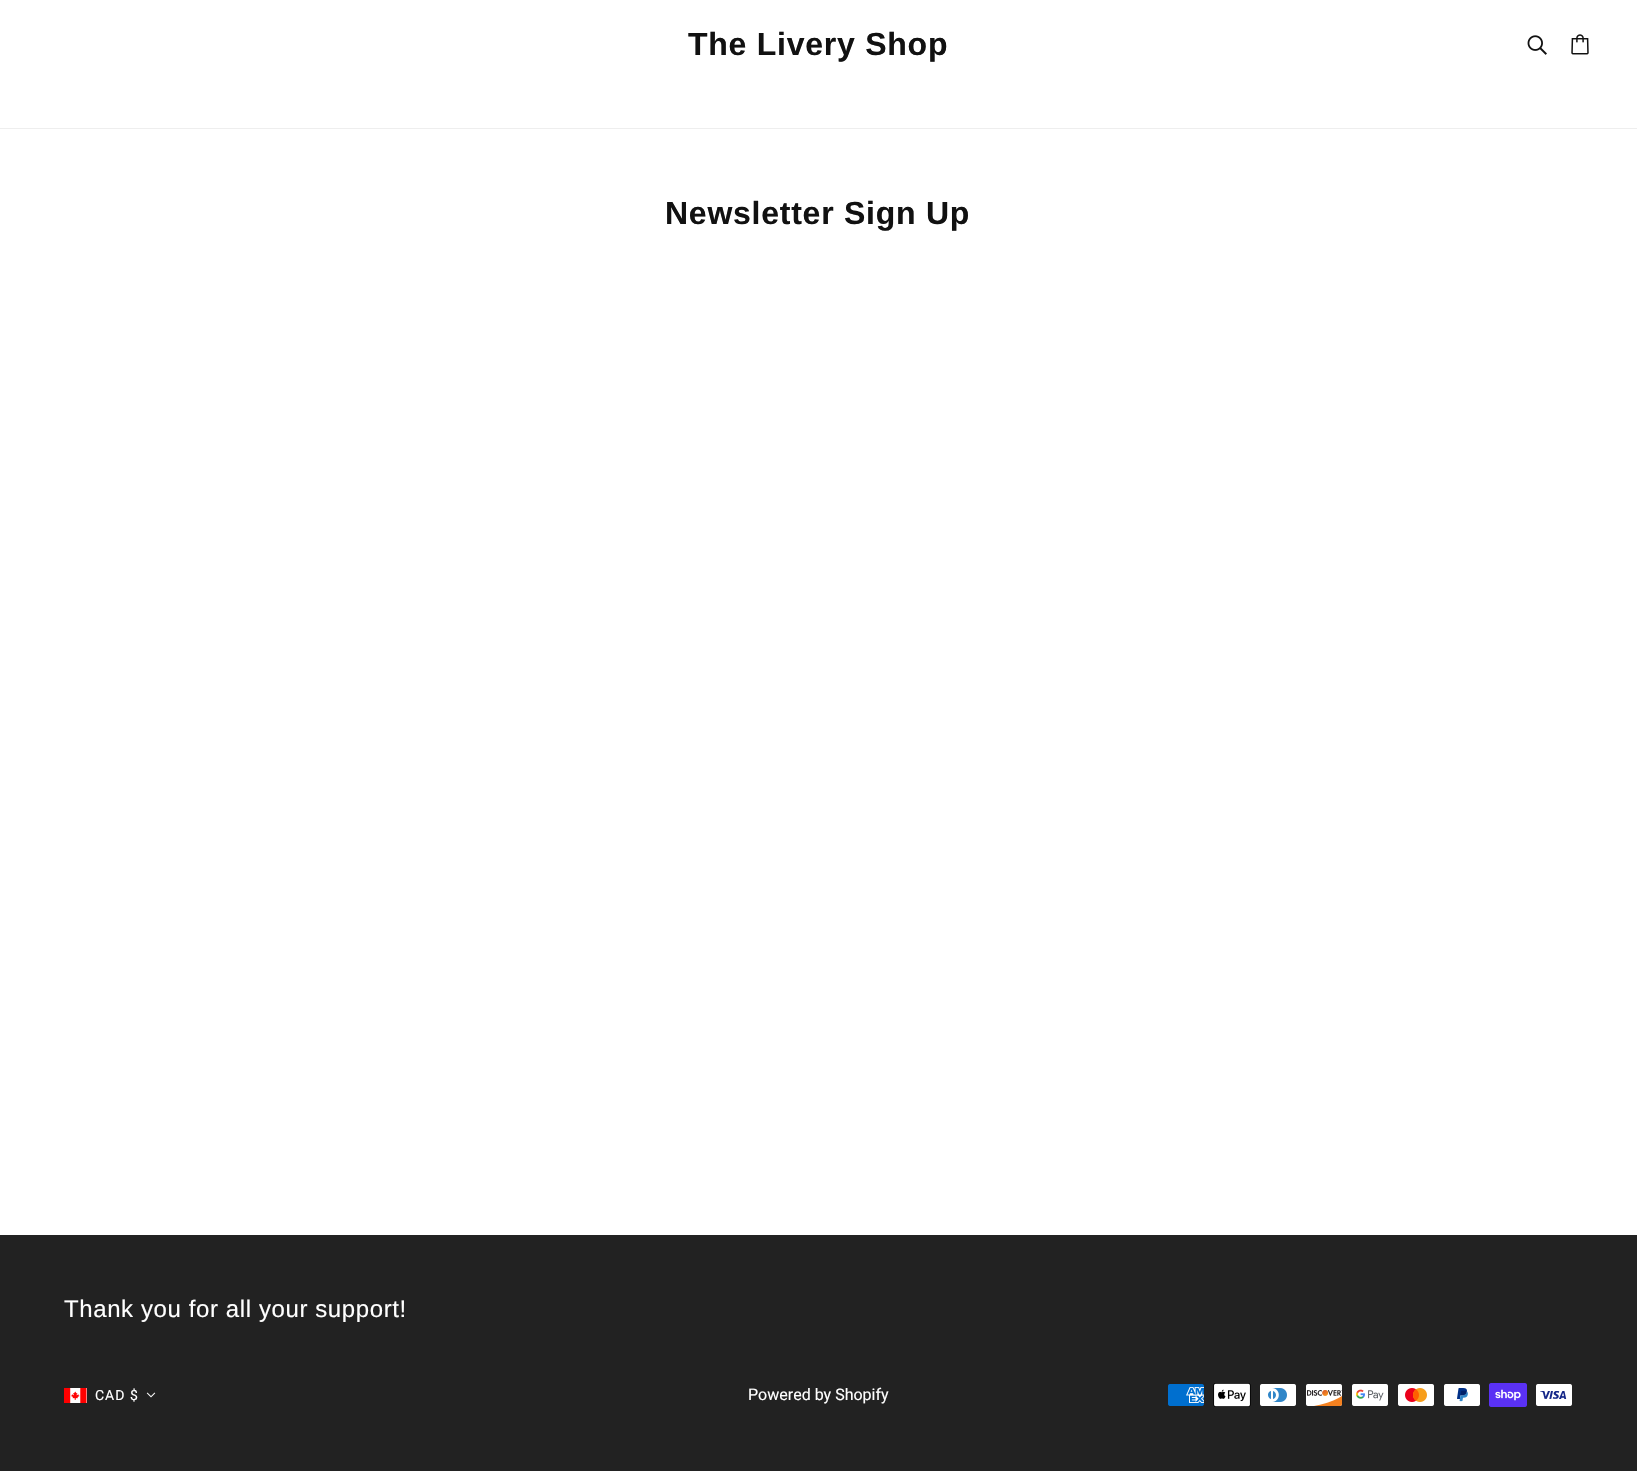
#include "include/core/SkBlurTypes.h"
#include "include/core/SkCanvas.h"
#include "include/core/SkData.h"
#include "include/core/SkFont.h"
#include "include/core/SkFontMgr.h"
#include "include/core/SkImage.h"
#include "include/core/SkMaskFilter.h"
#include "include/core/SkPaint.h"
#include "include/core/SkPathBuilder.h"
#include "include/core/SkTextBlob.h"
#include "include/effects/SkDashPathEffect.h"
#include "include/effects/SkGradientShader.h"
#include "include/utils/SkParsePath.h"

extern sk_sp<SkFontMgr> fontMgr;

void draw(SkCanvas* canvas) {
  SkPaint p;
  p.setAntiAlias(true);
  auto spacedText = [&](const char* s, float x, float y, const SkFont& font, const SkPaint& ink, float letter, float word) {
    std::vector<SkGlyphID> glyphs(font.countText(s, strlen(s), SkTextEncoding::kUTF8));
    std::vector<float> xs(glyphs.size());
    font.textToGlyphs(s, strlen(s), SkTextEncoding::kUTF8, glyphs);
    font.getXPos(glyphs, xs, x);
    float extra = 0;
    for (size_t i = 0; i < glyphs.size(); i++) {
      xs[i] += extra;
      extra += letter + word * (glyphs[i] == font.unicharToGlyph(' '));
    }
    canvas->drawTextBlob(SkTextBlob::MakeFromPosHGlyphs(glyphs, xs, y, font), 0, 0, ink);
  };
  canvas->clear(SK_ColorWHITE);
  p.setColor(SkColorSetRGB(238, 238, 238));
  canvas->drawRect(SkRect::MakeLTRB(0, 128, 1637, 129), p);
  canvas->drawImageRect(SkImages::DeferredFromEncodedData(SkData::MakeFromFileName("images/1.png")), SkRect::MakeLTRB(1527, 35, 1547, 55), SkSamplingOptions());
  canvas->drawImageRect(SkImages::DeferredFromEncodedData(SkData::MakeFromFileName("images/2.png")), SkRect::MakeLTRB(1571, 34, 1589, 55), SkSamplingOptions());
  p.setColor(SkColorSetRGB(34, 34, 34));
  canvas->drawRect(SkRect::MakeLTRB(0, 1235, 1637, 1471), p);
  canvas->drawImageRect(SkImages::DeferredFromEncodedData(SkData::MakeFromFileName("images/3.png")), SkRect::MakeLTRB(64, 1388, 87, 1403), SkSamplingOptions());
  canvas->drawImageRect(SkImages::DeferredFromEncodedData(SkData::MakeFromFileName("images/4.png")), SkRect::MakeLTRB(146, 1392, 156, 1398), SkSamplingOptions());
  canvas->drawImageRect(SkImages::DeferredFromEncodedData(SkData::MakeFromFileName("images/5.png")), SkRect::MakeLTRB(1168, 1384, 1204, 1406), SkSamplingOptions());
  canvas->drawImageRect(SkImages::DeferredFromEncodedData(SkData::MakeFromFileName("images/6.png")), SkRect::MakeLTRB(1213, 1383, 1251, 1407), SkSamplingOptions());
  canvas->drawImageRect(SkImages::DeferredFromEncodedData(SkData::MakeFromFileName("images/7.png")), SkRect::MakeLTRB(1260, 1384, 1296, 1406), SkSamplingOptions());
  canvas->drawImageRect(SkImages::DeferredFromEncodedData(SkData::MakeFromFileName("images/8.png")), SkRect::MakeLTRB(1306, 1384, 1342, 1406), SkSamplingOptions());
  canvas->drawImageRect(SkImages::DeferredFromEncodedData(SkData::MakeFromFileName("images/9.png")), SkRect::MakeLTRB(1352, 1384, 1388, 1406), SkSamplingOptions());
  canvas->drawImageRect(SkImages::DeferredFromEncodedData(SkData::MakeFromFileName("images/10.png")), SkRect::MakeLTRB(1398, 1384, 1434, 1406), SkSamplingOptions());
  canvas->drawImageRect(SkImages::DeferredFromEncodedData(SkData::MakeFromFileName("images/11.png")), SkRect::MakeLTRB(1444, 1384, 1480, 1406), SkSamplingOptions());
  canvas->drawImageRect(SkImages::DeferredFromEncodedData(SkData::MakeFromFileName("images/12.png")), SkRect::MakeLTRB(1489, 1383, 1527, 1407), SkSamplingOptions());
  canvas->drawImageRect(SkImages::DeferredFromEncodedData(SkData::MakeFromFileName("images/13.png")), SkRect::MakeLTRB(1536, 1384, 1572, 1406), SkSamplingOptions());
  SkFont font1(fontMgr->matchFamilyStyle("Arimo", SkFontStyle::Bold()), 32);
  font1.setSubpixel(true);
  p.setColor(SkColorSetRGB(17, 17, 17));
  spacedText("The Livery Shop", 688, 55, font1, p, 0.75f, 0);
  spacedText("Newsletter Sign Up", 665, 224, font1, p, 0.75f, 0);
  SkFont font2(fontMgr->matchFamilyStyle("Arimo", SkFontStyle::Normal()), 24);
  font2.setSubpixel(true);
  p.setColor(SK_ColorWHITE);
  spacedText("Thank you for all your support!", 64, 1317, font2, p, 0.6f, 0);
  SkFont font3(fontMgr->matchFamilyStyle("Roboto", SkFontStyle::Normal()), 14);
  font3.setSubpixel(true);
  spacedText("CAD $", 95, 1400, font3, p, 1, 0);
  SkFont font4(fontMgr->matchFamilyStyle("Roboto", SkFontStyle::Normal()), 16);
  font4.setSubpixel(true);
  canvas->drawString("Powered by Shopify", 748, 1400, font4, p);
}
